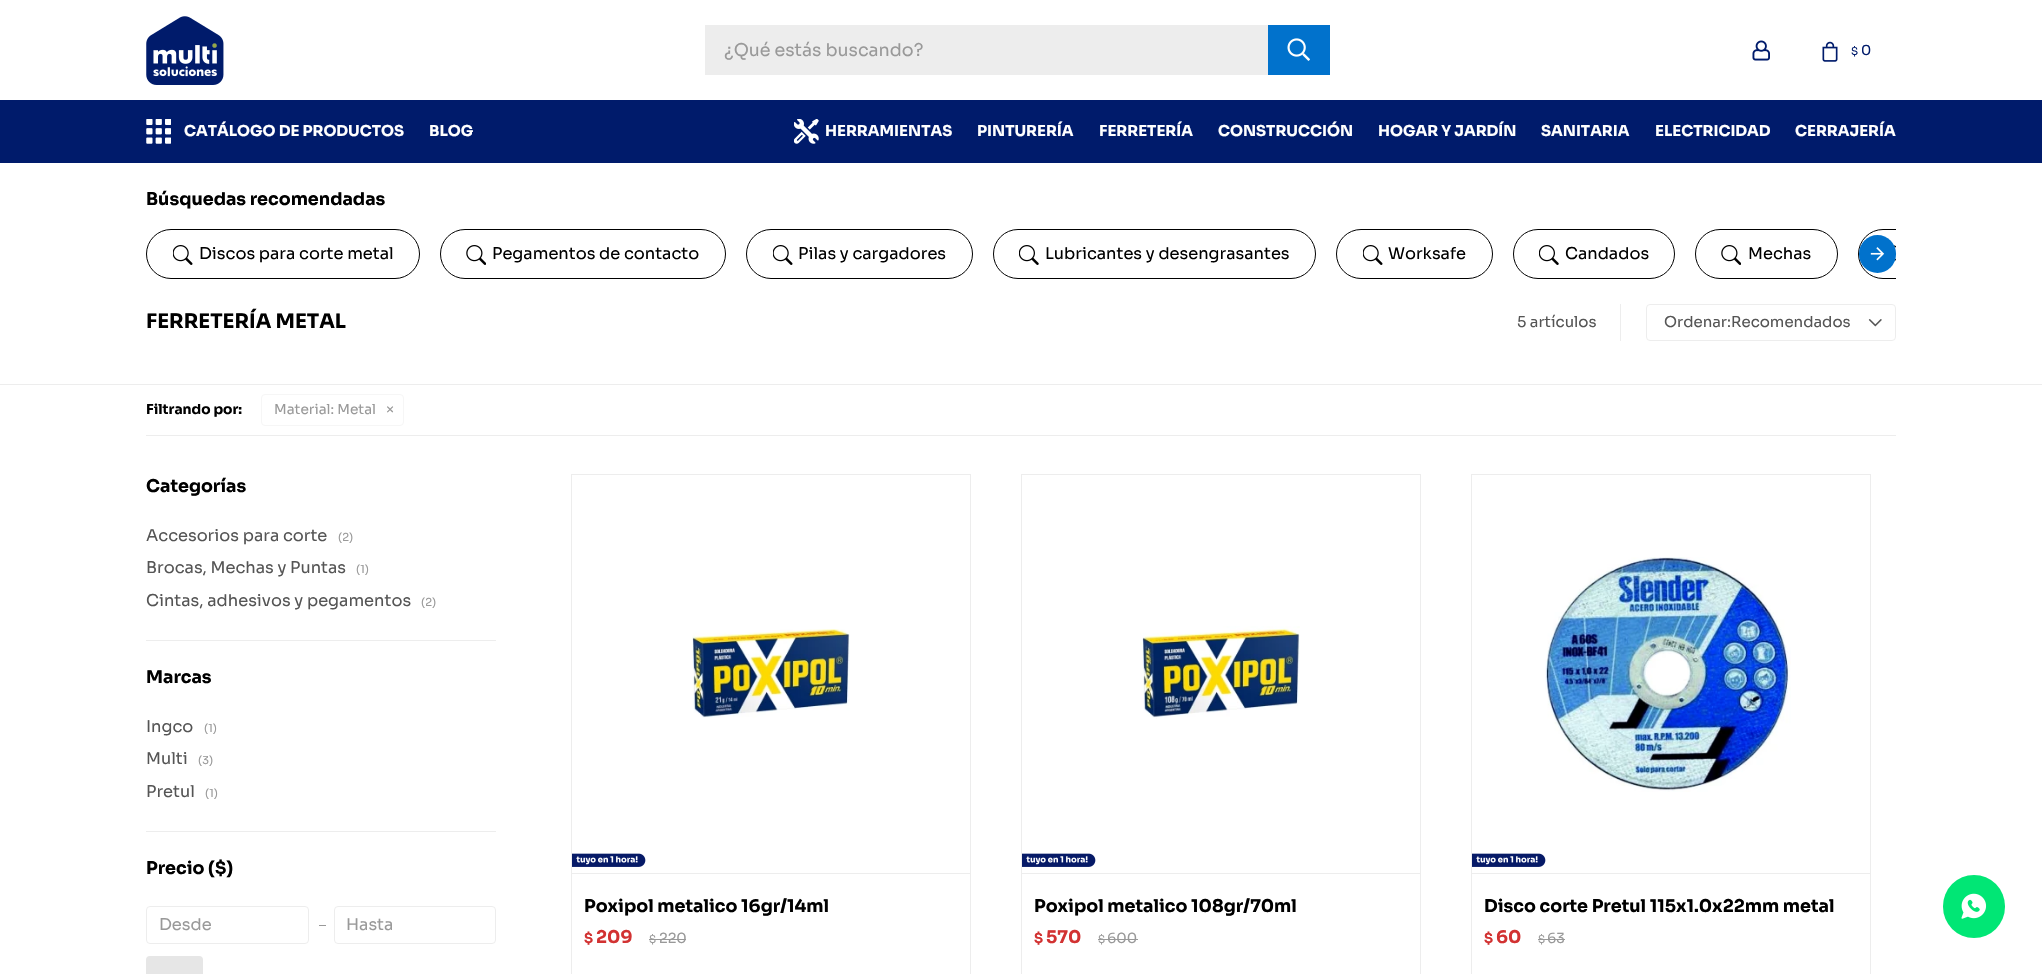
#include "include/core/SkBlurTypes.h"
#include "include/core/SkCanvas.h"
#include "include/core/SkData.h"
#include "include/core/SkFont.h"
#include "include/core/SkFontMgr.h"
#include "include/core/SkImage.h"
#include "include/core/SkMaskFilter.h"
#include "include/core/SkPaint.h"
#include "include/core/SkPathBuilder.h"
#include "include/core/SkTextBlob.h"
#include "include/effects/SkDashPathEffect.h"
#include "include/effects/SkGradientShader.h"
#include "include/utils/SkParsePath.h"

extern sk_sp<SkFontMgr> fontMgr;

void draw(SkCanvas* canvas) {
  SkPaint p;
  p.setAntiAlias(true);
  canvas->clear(SK_ColorWHITE);
  canvas->drawImageRect(SkImages::DeferredFromEncodedData(SkData::MakeFromFileName("images/1.png")), SkRect::MakeLTRB(146, 16, 224, 85), SkSamplingOptions());
  p.setColor(SkColorSetRGB(237, 237, 237));
  canvas->drawRect(SkRect::MakeLTRB(705, 25, 1268, 75), p);
  p.setColor(SkColorSetRGB(1, 114, 204));
  canvas->drawRect(SkRect::MakeLTRB(1268, 25, 1330, 75), p);
  canvas->drawImageRect(SkImages::DeferredFromEncodedData(SkData::MakeFromFileName("images/2.png")), SkRect::MakeLTRB(1287, 38, 1310, 61), SkSamplingOptions());
  canvas->drawImageRect(SkImages::DeferredFromEncodedData(SkData::MakeFromFileName("images/3.png")), SkRect::MakeLTRB(1752, 40, 1770, 61), SkSamplingOptions());
  canvas->drawImageRect(SkImages::DeferredFromEncodedData(SkData::MakeFromFileName("images/4.png")), SkRect::MakeLTRB(1822, 41, 1838, 62), SkSamplingOptions());
  p.setColor(SkColorSetRGB(0, 27, 107));
  canvas->drawRect(SkRect::MakeLTRB(0, 100, 2042, 163), p);
  canvas->drawImageRect(SkImages::DeferredFromEncodedData(SkData::MakeFromFileName("images/5.png")), SkRect::MakeLTRB(146, 119, 171, 144), SkSamplingOptions());
  canvas->drawImageRect(SkImages::DeferredFromEncodedData(SkData::MakeFromFileName("images/6.png")), SkRect::MakeLTRB(794, 119, 819, 144), SkSamplingOptions());
  p.setStyle(SkPaint::kStroke_Style);
  p.setStrokeWidth(1);
  p.setColor(SK_ColorBLACK);
  canvas->drawRoundRect(SkRect::MakeLTRB(146.5f, 229.5f, 419.5f, 278.5f), 24.5f, 24.5f, p);
  canvas->drawImageRect(SkImages::DeferredFromEncodedData(SkData::MakeFromFileName("images/7.png")), SkRect::MakeLTRB(173, 245, 193, 265), SkSamplingOptions());
  canvas->drawRoundRect(SkRect::MakeLTRB(440.5f, 229.5f, 725.5f, 278.5f), 24.5f, 24.5f, p);
  canvas->drawImageRect(SkImages::DeferredFromEncodedData(SkData::MakeFromFileName("images/8.png")), SkRect::MakeLTRB(466, 245, 486, 265), SkSamplingOptions());
  canvas->drawRoundRect(SkRect::MakeLTRB(746.5f, 229.5f, 972.5f, 278.5f), 24.5f, 24.5f, p);
  canvas->drawImageRect(SkImages::DeferredFromEncodedData(SkData::MakeFromFileName("images/7.png")), SkRect::MakeLTRB(773, 245, 793, 265), SkSamplingOptions());
  canvas->drawRoundRect(SkRect::MakeLTRB(993.5f, 229.5f, 1315.5f, 278.5f), 24.5f, 24.5f, p);
  canvas->drawImageRect(SkImages::DeferredFromEncodedData(SkData::MakeFromFileName("images/9.png")), SkRect::MakeLTRB(1019, 245, 1039, 265), SkSamplingOptions());
  canvas->drawRoundRect(SkRect::MakeLTRB(1336.5f, 229.5f, 1492.5f, 278.5f), 24.5f, 24.5f, p);
  canvas->drawImageRect(SkImages::DeferredFromEncodedData(SkData::MakeFromFileName("images/7.png")), SkRect::MakeLTRB(1363, 245, 1383, 265), SkSamplingOptions());
  canvas->drawRoundRect(SkRect::MakeLTRB(1513.5f, 229.5f, 1674.5f, 278.5f), 24.5f, 24.5f, p);
  canvas->drawImageRect(SkImages::DeferredFromEncodedData(SkData::MakeFromFileName("images/9.png")), SkRect::MakeLTRB(1539, 245, 1559, 265), SkSamplingOptions());
  canvas->drawRoundRect(SkRect::MakeLTRB(1695.5f, 229.5f, 1837.5f, 278.5f), 24.5f, 24.5f, p);
  canvas->drawImageRect(SkImages::DeferredFromEncodedData(SkData::MakeFromFileName("images/8.png")), SkRect::MakeLTRB(1721, 245, 1741, 265), SkSamplingOptions());
  canvas->save();
  canvas->clipRect(SkRect::MakeLTRB(146, 229, 1896, 279));
  canvas->drawRoundRect(SkRect::MakeLTRB(1858.5f, 229.5f, 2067.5f, 278.5f), 24.5f, 24.5f, p);
  canvas->restore();
  canvas->drawImageRect(SkImages::DeferredFromEncodedData(SkData::MakeFromFileName("images/10.png")), SkRect::MakeLTRB(1894, 245, 1896, 261), SkSamplingOptions());
  p.setStyle(SkPaint::kFill_Style);
  p.setColor(SkColorSetRGB(1, 114, 204));
  canvas->drawRoundRect(SkRect::MakeLTRB(1859, 235, 1896, 273), 18.5f, 18.5f, p);
  canvas->drawImageRect(SkImages::DeferredFromEncodedData(SkData::MakeFromFileName("images/11.png")), SkRect::MakeLTRB(1870, 247, 1885, 261), SkSamplingOptions());
  p.setColor(SkColorSetRGB(237, 237, 237));
  canvas->drawRect(SkRect::MakeLTRB(1620, 304, 1621, 341), p);
  canvas->drawImageRect(SkImages::DeferredFromEncodedData(SkData::MakeFromFileName("images/12.png")), SkRect::MakeLTRB(1868, 319, 1882, 327), SkSamplingOptions());
  p.setStyle(SkPaint::kStroke_Style);
  canvas->drawRoundRect(SkRect::MakeLTRB(1646.5f, 304.5f, 1895.5f, 340.5f), 3.5f, 3.5f, p);
  p.setStyle(SkPaint::kFill_Style);
  canvas->drawRect(SkRect::MakeLTRB(0, 384, 2042, 385), p);
  canvas->drawRect(SkRect::MakeLTRB(146, 435, 1896, 436), p);
  p.setStyle(SkPaint::kStroke_Style);
  p.setColor(SkColorSetRGB(246, 246, 246));
  canvas->drawRoundRect(SkRect::MakeLTRB(261.5f, 394.5f, 403.5f, 425.5f), 3.5f, 3.5f, p);
  p.setStyle(SkPaint::kFill_Style);
  p.setColor(SkColorSetRGB(237, 237, 237));
  canvas->drawRect(SkRect::MakeLTRB(146, 640, 496, 641), p);
  canvas->drawRect(SkRect::MakeLTRB(146, 831, 496, 832), p);
  p.setStyle(SkPaint::kStroke_Style);
  canvas->drawRoundRect(SkRect::MakeLTRB(146.5f, 906.5f, 308.5f, 943.5f), 3.5f, 3.5f, p);
  p.setStyle(SkPaint::kFill_Style);
  p.setColor(SkColorSetRGB(153, 153, 153));
  canvas->drawRect(SkRect::MakeLTRB(319, 925, 326, 926), p);
  p.setStyle(SkPaint::kStroke_Style);
  p.setColor(SkColorSetRGB(237, 237, 237));
  canvas->drawRoundRect(SkRect::MakeLTRB(334.5f, 906.5f, 495.5f, 943.5f), 3.5f, 3.5f, p);
  p.setStyle(SkPaint::kFill_Style);
  p.setColor(SkColorSetRGB(230, 230, 230));
  canvas->drawRoundRect(SkRect::MakeLTRB(146, 956, 203, 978), 4, 4, p);
  canvas->drawImageRect(SkImages::DeferredFromEncodedData(SkData::MakeFromFileName("images/13.png")), SkRect::MakeLTRB(692, 629, 850, 718), SkSamplingOptions());
  canvas->drawImageRect(SkImages::DeferredFromEncodedData(SkData::MakeFromFileName("images/14.png")), SkRect::MakeLTRB(572, 853, 646, 867), SkSamplingOptions());
  p.setColor(SkColorSetRGB(237, 237, 237));
  canvas->drawRect(SkRect::MakeLTRB(571, 873, 971, 874), p);
  p.setColor(SkColorSetRGB(153, 153, 153));
  canvas->drawRect(SkRect::MakeLTRB(649, 939, 686, 940), p);
  p.setStyle(SkPaint::kStroke_Style);
  p.setColor(SkColorSetRGB(237, 237, 237));
  canvas->drawRect(SkRect::MakeLTRB(571.5f, 474.5f, 970.5f, 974.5f), p);
  canvas->drawImageRect(SkImages::DeferredFromEncodedData(SkData::MakeFromFileName("images/15.png")), SkRect::MakeLTRB(1140, 626, 1300, 719), SkSamplingOptions());
  canvas->drawImageRect(SkImages::DeferredFromEncodedData(SkData::MakeFromFileName("images/14.png")), SkRect::MakeLTRB(1022, 853, 1096, 867), SkSamplingOptions());
  p.setStyle(SkPaint::kFill_Style);
  canvas->drawRect(SkRect::MakeLTRB(1021, 873, 1421, 874), p);
  p.setColor(SkColorSetRGB(153, 153, 153));
  canvas->drawRect(SkRect::MakeLTRB(1098, 939, 1138, 940), p);
  p.setStyle(SkPaint::kStroke_Style);
  p.setColor(SkColorSetRGB(237, 237, 237));
  canvas->drawRect(SkRect::MakeLTRB(1021.5f, 474.5f, 1420.5f, 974.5f), p);
  canvas->drawImageRect(SkImages::DeferredFromEncodedData(SkData::MakeFromFileName("images/16.png")), SkRect::MakeLTRB(1545, 557, 1791, 792), SkSamplingOptions());
  canvas->drawImageRect(SkImages::DeferredFromEncodedData(SkData::MakeFromFileName("images/14.png")), SkRect::MakeLTRB(1472, 853, 1546, 867), SkSamplingOptions());
  p.setStyle(SkPaint::kFill_Style);
  canvas->drawRect(SkRect::MakeLTRB(1471, 873, 1871, 874), p);
  p.setColor(SkColorSetRGB(153, 153, 153));
  canvas->drawRect(SkRect::MakeLTRB(1538, 939, 1565, 940), p);
  p.setStyle(SkPaint::kStroke_Style);
  p.setColor(SkColorSetRGB(237, 237, 237));
  canvas->drawRect(SkRect::MakeLTRB(1471.5f, 474.5f, 1870.5f, 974.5f), p);
  p.setStyle(SkPaint::kFill_Style);
  p.setColor(SkColorSetRGB(1, 230, 117));
  canvas->drawRoundRect(SkRect::MakeLTRB(1943, 875, 2005, 938), 31, 31, p);
  canvas->drawImageRect(SkImages::DeferredFromEncodedData(SkData::MakeFromFileName("images/17.png")), SkRect::MakeLTRB(1961, 893, 1987, 919), SkSamplingOptions());
  SkFont font1(fontMgr->matchFamilyStyle("Sora", SkFontStyle::Normal()), 17.5f);
  font1.setSubpixel(true);
  p.setColor(SkColorSetRGB(153, 153, 153));
  canvas->drawString("¿Qué estás buscando?", 724, 56, font1, p);
  SkFont font2(fontMgr->matchFamilyStyle("Sora", SkFontStyle::Normal()), 11);
  font2.setSubpixel(true);
  p.setColor(SkColorSetRGB(0, 27, 107));
  canvas->drawString("$", 1851, 55, font2, p);
  SkFont font3(fontMgr->matchFamilyStyle("Sora", SkFontStyle::Normal()), 13.75f);
  font3.setSubpixel(true);
  canvas->drawString("0", 1861, 55, font3, p);
  SkFont font4(fontMgr->matchFamilyStyle("Sora", SkFontStyle::Bold()), 15);
  font4.setSubpixel(true);
  p.setColor(SK_ColorWHITE);
  canvas->drawString("CATÁLOGO DE PRODUCTOS", 184, 136, font4, p);
  canvas->drawString("BLOG", 429, 136, font4, p);
  canvas->drawString("HERRAMIENTAS", 825, 136, font4, p);
  canvas->drawString("PINTURERÍA", 977, 136, font4, p);
  canvas->drawString("FERRETERÍA", 1099, 136, font4, p);
  canvas->drawString("CONSTRUCCIÓN", 1218, 136, font4, p);
  canvas->drawString("HOGAR Y JARDÍN", 1378, 136, font4, p);
  canvas->drawString("SANITARIA", 1541, 136, font4, p);
  canvas->drawString("ELECTRICIDAD", 1655, 136, font4, p);
  canvas->drawString("CERRAJERÍA", 1795, 136, font4, p);
  SkFont font5(fontMgr->matchFamilyStyle("Sora", SkFontStyle::Bold()), 17.5f);
  font5.setSubpixel(true);
  p.setColor(SK_ColorBLACK);
  canvas->drawString("Búsquedas recomendadas", 146, 205, font5, p);
  SkFont font6(fontMgr->matchFamilyStyle("Sora", SkFontStyle::Normal()), 16.25f);
  font6.setSubpixel(true);
  canvas->drawString("Discos para corte metal", 199, 259, font6, p);
  canvas->drawString("Pegamentos de contacto", 492, 259, font6, p);
  canvas->drawString("Pilas y cargadores", 798, 259, font6, p);
  canvas->drawString("Lubricantes y desengrasantes", 1045, 259, font6, p);
  canvas->drawString("Worksafe", 1388, 259, font6, p);
  canvas->drawString("Candados", 1565, 259, font6, p);
  canvas->drawString("Mechas", 1748, 259, font6, p);
  SkFont font7(fontMgr->matchFamilyStyle("Sora", SkFontStyle::Bold()), 20);
  font7.setSubpixel(true);
  canvas->drawString("FERRETERÍA METAL", 146, 328, font7, p);
  SkFont font8(fontMgr->matchFamilyStyle("Sora", SkFontStyle::Normal()), 15);
  font8.setSubpixel(true);
  p.setColor(SkColorSetRGB(85, 85, 85));
  canvas->drawString("5 artículos", 1517, 327, font8, p);
  canvas->drawString("Ordenar:Recomendados", 1664, 327, font8, p);
  SkFont font9(fontMgr->matchFamilyStyle("Sora", SkFontStyle::Bold()), 13.75f);
  font9.setSubpixel(true);
  p.setColor(SK_ColorBLACK);
  canvas->drawString("Filtrando por:", 146, 414, font9, p);
  p.setColor(SkColorSetRGB(153, 153, 153));
  canvas->drawString("Material: Metal", 274, 414, font3, p);
  canvas->drawString("×", 386, 414, font3, p);
  p.setColor(SK_ColorBLACK);
  canvas->drawString("Categorías", 146, 492, font5, p);
  p.setColor(SkColorSetRGB(85, 85, 85));
  canvas->drawString("Accesorios para corte", 146, 541, font6, p);
  p.setColor(SkColorSetRGB(153, 153, 153));
  canvas->drawString("(2)", 338, 541, font2, p);
  p.setColor(SkColorSetRGB(85, 85, 85));
  canvas->drawString("Brocas, Mechas y Puntas", 146, 573, font6, p);
  p.setColor(SkColorSetRGB(153, 153, 153));
  canvas->drawString("(1)", 356, 573, font2, p);
  p.setColor(SkColorSetRGB(85, 85, 85));
  canvas->drawString("Cintas, adhesivos y pegamentos", 146, 606, font6, p);
  p.setColor(SkColorSetRGB(153, 153, 153));
  canvas->drawString("(2)", 421, 606, font2, p);
  p.setColor(SK_ColorBLACK);
  canvas->drawString("Marcas", 146, 683, font5, p);
  p.setColor(SkColorSetRGB(85, 85, 85));
  canvas->drawString("Ingco", 146, 732, font6, p);
  p.setColor(SkColorSetRGB(153, 153, 153));
  canvas->drawString("(1)", 204, 732, font2, p);
  p.setColor(SkColorSetRGB(85, 85, 85));
  canvas->drawString("Multi", 146, 764, font6, p);
  p.setColor(SkColorSetRGB(153, 153, 153));
  canvas->drawString("(3)", 198, 764, font2, p);
  p.setColor(SkColorSetRGB(85, 85, 85));
  canvas->drawString("Pretul", 146, 797, font6, p);
  p.setColor(SkColorSetRGB(153, 153, 153));
  canvas->drawString("(1)", 205, 797, font2, p);
  p.setColor(SK_ColorBLACK);
  canvas->drawString("Precio ($)", 146, 874, font5, p);
  p.setColor(SkColorSetRGB(153, 153, 153));
  canvas->drawString("Desde", 159, 930, font6, p);
  canvas->drawString("Hasta", 346, 930, font6, p);
  p.setColor(SK_ColorBLACK);
  canvas->drawString("Poxipol metalico 16gr/14ml", 584, 912, font5, p);
  SkFont font10(fontMgr->matchFamilyStyle("Sora", SkFontStyle::Bold()), 14);
  font10.setSubpixel(true);
  p.setColor(SkColorSetRGB(210, 50, 50));
  canvas->drawString("$", 584, 943, font10, p);
  canvas->drawString("209", 596, 943, font5, p);
  p.setColor(SkColorSetRGB(153, 153, 153));
  canvas->drawString("$", 649, 943, font2, p);
  SkFont font11(fontMgr->matchFamilyStyle("Sora", SkFontStyle::Normal()), 14);
  font11.setSubpixel(true);
  canvas->drawString("220", 659, 943, font11, p);
  p.setColor(SK_ColorBLACK);
  canvas->drawString("Poxipol metalico 108gr/70ml", 1034, 912, font5, p);
  p.setColor(SkColorSetRGB(210, 50, 50));
  canvas->drawString("$", 1034, 943, font10, p);
  canvas->drawString("570", 1046, 943, font5, p);
  p.setColor(SkColorSetRGB(153, 153, 153));
  canvas->drawString("$", 1098, 943, font2, p);
  canvas->drawString("600", 1107, 943, font11, p);
  p.setColor(SK_ColorBLACK);
  canvas->drawString("Disco corte Pretul 115x1.0x22mm metal", 1484, 912, font5, p);
  p.setColor(SkColorSetRGB(210, 50, 50));
  canvas->drawString("$", 1484, 943, font10, p);
  canvas->drawString("60", 1496, 943, font5, p);
  p.setColor(SkColorSetRGB(153, 153, 153));
  canvas->drawString("$", 1538, 943, font2, p);
  canvas->drawString("63", 1547, 943, font11, p);
}
